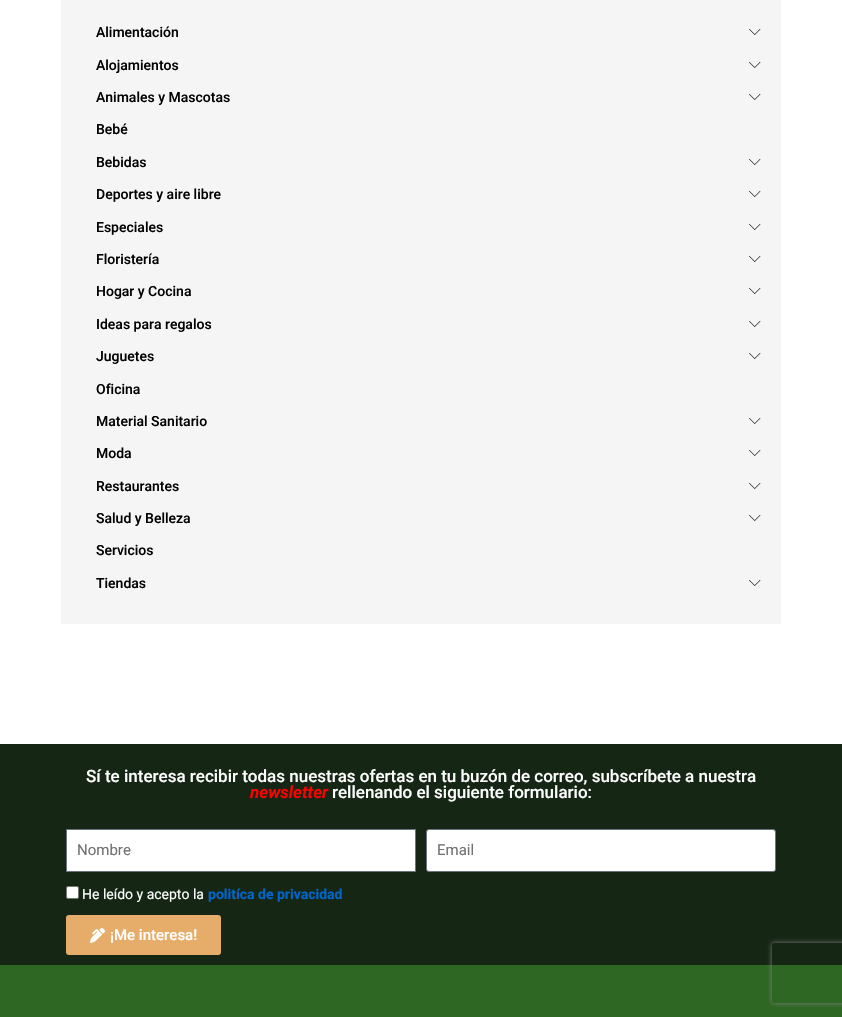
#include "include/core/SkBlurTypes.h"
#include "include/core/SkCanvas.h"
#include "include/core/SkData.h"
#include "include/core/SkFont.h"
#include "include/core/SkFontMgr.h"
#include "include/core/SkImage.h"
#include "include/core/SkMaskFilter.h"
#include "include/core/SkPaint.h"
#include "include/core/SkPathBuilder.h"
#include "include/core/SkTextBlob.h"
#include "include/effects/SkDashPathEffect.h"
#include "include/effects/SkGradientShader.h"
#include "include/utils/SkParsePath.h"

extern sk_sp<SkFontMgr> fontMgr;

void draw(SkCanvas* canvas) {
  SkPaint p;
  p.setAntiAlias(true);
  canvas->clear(SK_ColorWHITE);
  p.setColor(SkColorSetRGB(245, 245, 245));
  canvas->drawRect(SkRect::MakeLTRB(61, 0, 781, 624), p);
  canvas->drawImageRect(SkImages::DeferredFromEncodedData(SkData::MakeFromFileName("images/1.png")), SkRect::MakeLTRB(749, 29, 761, 35), SkSamplingOptions());
  canvas->drawImageRect(SkImages::DeferredFromEncodedData(SkData::MakeFromFileName("images/1.png")), SkRect::MakeLTRB(749, 62, 761, 68), SkSamplingOptions());
  canvas->drawImageRect(SkImages::DeferredFromEncodedData(SkData::MakeFromFileName("images/1.png")), SkRect::MakeLTRB(749, 94, 761, 100), SkSamplingOptions());
  canvas->drawImageRect(SkImages::DeferredFromEncodedData(SkData::MakeFromFileName("images/1.png")), SkRect::MakeLTRB(749, 159, 761, 165), SkSamplingOptions());
  canvas->drawImageRect(SkImages::DeferredFromEncodedData(SkData::MakeFromFileName("images/1.png")), SkRect::MakeLTRB(749, 191, 761, 197), SkSamplingOptions());
  canvas->drawImageRect(SkImages::DeferredFromEncodedData(SkData::MakeFromFileName("images/1.png")), SkRect::MakeLTRB(749, 224, 761, 230), SkSamplingOptions());
  canvas->drawImageRect(SkImages::DeferredFromEncodedData(SkData::MakeFromFileName("images/1.png")), SkRect::MakeLTRB(749, 256, 761, 262), SkSamplingOptions());
  canvas->drawImageRect(SkImages::DeferredFromEncodedData(SkData::MakeFromFileName("images/1.png")), SkRect::MakeLTRB(749, 288, 761, 294), SkSamplingOptions());
  canvas->drawImageRect(SkImages::DeferredFromEncodedData(SkData::MakeFromFileName("images/1.png")), SkRect::MakeLTRB(749, 321, 761, 327), SkSamplingOptions());
  canvas->drawImageRect(SkImages::DeferredFromEncodedData(SkData::MakeFromFileName("images/1.png")), SkRect::MakeLTRB(749, 353, 761, 359), SkSamplingOptions());
  canvas->drawImageRect(SkImages::DeferredFromEncodedData(SkData::MakeFromFileName("images/1.png")), SkRect::MakeLTRB(749, 418, 761, 424), SkSamplingOptions());
  canvas->drawImageRect(SkImages::DeferredFromEncodedData(SkData::MakeFromFileName("images/1.png")), SkRect::MakeLTRB(749, 450, 761, 456), SkSamplingOptions());
  canvas->drawImageRect(SkImages::DeferredFromEncodedData(SkData::MakeFromFileName("images/1.png")), SkRect::MakeLTRB(749, 483, 761, 489), SkSamplingOptions());
  canvas->drawImageRect(SkImages::DeferredFromEncodedData(SkData::MakeFromFileName("images/1.png")), SkRect::MakeLTRB(749, 515, 761, 521), SkSamplingOptions());
  canvas->drawImageRect(SkImages::DeferredFromEncodedData(SkData::MakeFromFileName("images/1.png")), SkRect::MakeLTRB(749, 580, 761, 586), SkSamplingOptions());
  p.setColor(SkColorSetRGB(21, 38, 20));
  canvas->drawRect(SkRect::MakeLTRB(0, 744, 842, 965), p);
  p.setColor(SK_ColorWHITE);
  canvas->drawRect(SkRect::MakeLTRB(66.5f, 829.5f, 415.5f, 871.5f), p);
  p.setStyle(SkPaint::kStroke_Style);
  p.setStrokeWidth(1);
  p.setColor(SkColorSetRGB(105, 114, 125));
  canvas->drawRect(SkRect::MakeLTRB(66.5f, 829.5f, 415.5f, 871.5f), p);
  p.setStyle(SkPaint::kFill_Style);
  p.setColor(SK_ColorWHITE);
  canvas->drawRoundRect(SkRect::MakeLTRB(426.5f, 829.5f, 775.5f, 871.5f), 2.5f, 2.5f, p);
  p.setStyle(SkPaint::kStroke_Style);
  p.setColor(SkColorSetRGB(105, 114, 125));
  canvas->drawRoundRect(SkRect::MakeLTRB(426.5f, 829.5f, 775.5f, 871.5f), 2.5f, 2.5f, p);
  p.setStyle(SkPaint::kFill_Style);
  p.setColor(SK_ColorWHITE);
  canvas->drawRoundRect(SkRect::MakeLTRB(66.5f, 886.5f, 78.5f, 898.5f), 1.5f, 1.5f, p);
  p.setStyle(SkPaint::kStroke_Style);
  p.setColor(SkColorSetRGB(118, 118, 118));
  canvas->drawRoundRect(SkRect::MakeLTRB(66.5f, 886.5f, 78.5f, 898.5f), 1.5f, 1.5f, p);
  p.setStyle(SkPaint::kFill_Style);
  p.setColor(SkColorSetRGB(230, 173, 106));
  canvas->drawRoundRect(SkRect::MakeLTRB(66, 915, 221, 955), 3, 3, p);
  canvas->drawImageRect(SkImages::DeferredFromEncodedData(SkData::MakeFromFileName("images/2.png")), SkRect::MakeLTRB(90, 927, 105, 943), SkSamplingOptions());
  p.setColor(SkColorSetRGB(46, 102, 35));
  canvas->drawRect(SkRect::MakeLTRB(0, 965, 842, 1017), p);
  canvas->save();
  canvas->clipPath(SkPathBuilder(SkPathFillType::kEvenOdd).moveTo(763, 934).lineTo(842, 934).lineTo(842, 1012).lineTo(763, 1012).close().moveTo(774, 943).lineTo(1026, 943).cubicTo(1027, 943, 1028, 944, 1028, 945).lineTo(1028, 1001).cubicTo(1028, 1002, 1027, 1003, 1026, 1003).lineTo(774, 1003).cubicTo(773, 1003, 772, 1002, 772, 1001).lineTo(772, 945).cubicTo(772, 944, 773, 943, 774, 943).close().detach(), true);
  p.setColor(SkColorSetRGB(128, 128, 128));
  p.setMaskFilter(SkMaskFilter::MakeBlur(kNormal_SkBlurStyle, 2.5f));
  canvas->drawRoundRect(SkRect::MakeLTRB(772, 943, 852, 1003), 2, 2, p);
  p.setMaskFilter(nullptr);
  canvas->restore();
  SkFont font1(fontMgr->matchFamilyStyle("Roboto", SkFontStyle(500, SkFontStyle::kNormal_Width, SkFontStyle::kUpright_Slant)), 14);
  font1.setSubpixel(true);
  p.setColor(SK_ColorBLACK);
  canvas->drawString("Alimentación", 96, 37, font1, p);
  canvas->drawString("Alojamientos", 96, 70, font1, p);
  canvas->drawString("Animales y Mascotas", 96, 102, font1, p);
  canvas->drawString("Bebé", 96, 134, font1, p);
  canvas->drawString("Bebidas", 96, 167, font1, p);
  canvas->drawString("Deportes y aire libre", 96, 199, font1, p);
  canvas->drawString("Especiales", 96, 232, font1, p);
  canvas->drawString("Floristería", 96, 264, font1, p);
  canvas->drawString("Hogar y Cocina", 96, 296, font1, p);
  canvas->drawString("Ideas para regalos", 96, 329, font1, p);
  canvas->drawString("Juguetes", 96, 361, font1, p);
  canvas->drawString("Oficina", 96, 394, font1, p);
  canvas->drawString("Material Sanitario", 96, 426, font1, p);
  canvas->drawString("Moda", 96, 458, font1, p);
  canvas->drawString("Restaurantes", 96, 491, font1, p);
  canvas->drawString("Salud y Belleza", 96, 523, font1, p);
  canvas->drawString("Servicios", 96, 555, font1, p);
  canvas->drawString("Tiendas", 96, 588, font1, p);
  SkFont font2(fontMgr->matchFamilyStyle("Roboto", SkFontStyle(500, SkFontStyle::kNormal_Width, SkFontStyle::kUpright_Slant)), 17);
  font2.setSubpixel(true);
  p.setColor(SK_ColorWHITE);
  canvas->drawString("Sí te interesa recibir todas nuestras ofertas en tu buzón de correo, subscríbete a nuestra", 86, 782, font2, p);
  SkFont font3(fontMgr->matchFamilyStyle("Roboto", SkFontStyle::BoldItalic()), 17);
  font3.setSubpixel(true);
  p.setColor(SkColorSetRGB(255, 0, 0));
  canvas->drawString("newsletter", 250, 798, font3, p);
  p.setColor(SK_ColorWHITE);
  canvas->drawString("rellenando el siguiente formulario:", 332, 798, font2, p);
  SkFont font4(fontMgr->matchFamilyStyle("Roboto", SkFontStyle::Normal()), 15);
  font4.setSubpixel(true);
  p.setColor(SkColorSetRGB(113, 113, 113));
  canvas->drawString("Nombre", 77, 855, font4, p);
  canvas->drawString("Email", 437, 855, font4, p);
  SkFont font5(fontMgr->matchFamilyStyle("Roboto", SkFontStyle::Normal()), 14);
  font5.setSubpixel(true);
  p.setColor(SK_ColorWHITE);
  canvas->drawString("He leído y acepto la", 82, 899, font5, p);
  SkFont font6(fontMgr->matchFamilyStyle("Roboto", SkFontStyle::Bold()), 14);
  font6.setSubpixel(true);
  p.setColor(SkColorSetRGB(0, 102, 204));
  canvas->drawString("politíca de privacidad", 208, 899, font6, p);
  SkFont font7(fontMgr->matchFamilyStyle("Roboto", SkFontStyle(500, SkFontStyle::kNormal_Width, SkFontStyle::kUpright_Slant)), 15);
  font7.setSubpixel(true);
  p.setColor(SK_ColorWHITE);
  canvas->drawString("¡Me interesa!", 110, 940, font7, p);
}
